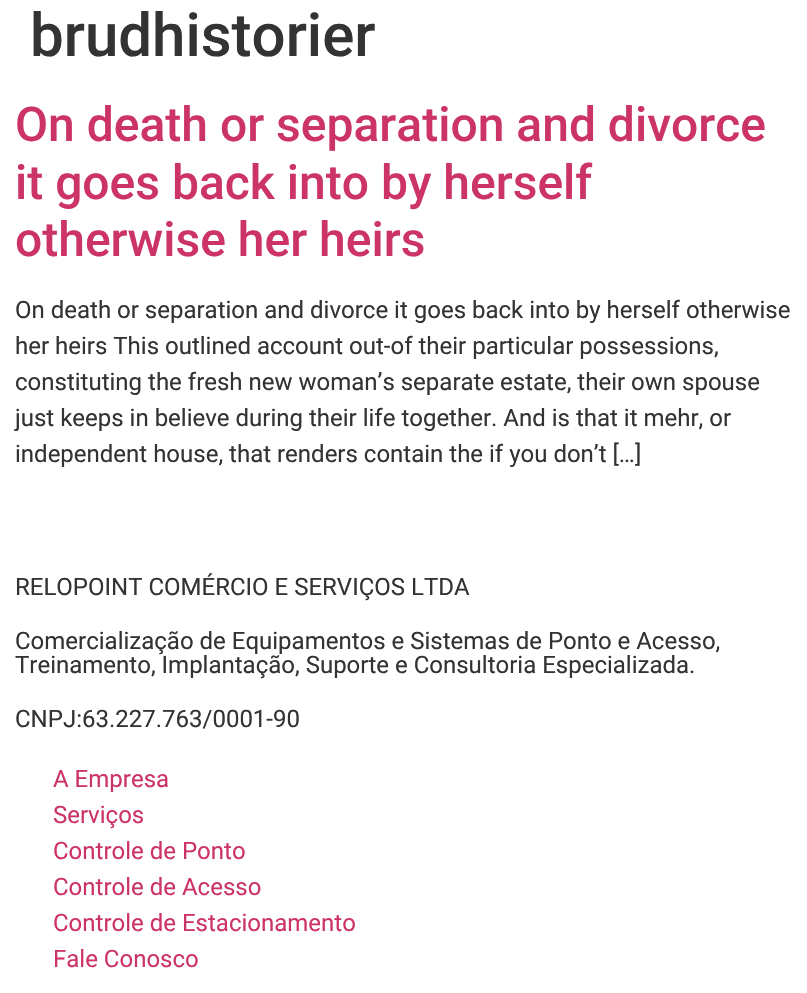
#include "include/core/SkBlurTypes.h"
#include "include/core/SkCanvas.h"
#include "include/core/SkData.h"
#include "include/core/SkFont.h"
#include "include/core/SkFontMgr.h"
#include "include/core/SkImage.h"
#include "include/core/SkMaskFilter.h"
#include "include/core/SkPaint.h"
#include "include/core/SkPathBuilder.h"
#include "include/core/SkTextBlob.h"
#include "include/effects/SkDashPathEffect.h"
#include "include/effects/SkGradientShader.h"
#include "include/utils/SkParsePath.h"

extern sk_sp<SkFontMgr> fontMgr;

void draw(SkCanvas* canvas) {
  SkPaint p;
  p.setAntiAlias(true);
  canvas->clear(SK_ColorWHITE);
  SkFont font1(fontMgr->matchFamilyStyle("Roboto", SkFontStyle(500, SkFontStyle::kNormal_Width, SkFontStyle::kUpright_Slant)), 60);
  font1.setSubpixel(true);
  p.setColor(SkColorSetRGB(51, 51, 51));
  canvas->drawString("brudhistorier", 30, 56, font1, p);
  SkFont font2(fontMgr->matchFamilyStyle("Roboto", SkFontStyle(500, SkFontStyle::kNormal_Width, SkFontStyle::kUpright_Slant)), 48);
  font2.setSubpixel(true);
  p.setColor(SkColorSetRGB(204, 51, 102));
  canvas->drawString("On death or separation and divorce", 15, 141, font2, p);
  canvas->drawString("it goes back into by herself", 15, 199, font2, p);
  canvas->drawString("otherwise her heirs", 15, 256, font2, p);
  SkFont font3(fontMgr->matchFamilyStyle("Roboto", SkFontStyle::Normal()), 24);
  font3.setSubpixel(true);
  p.setColor(SkColorSetRGB(51, 51, 51));
  canvas->drawString("On death or separation and divorce it goes back into by herself otherwise", 15, 318, font3, p);
  canvas->drawString("her heirs This outlined account out-of their particular possessions,", 15, 354, font3, p);
  canvas->drawString("constituting the fresh new woman’s separate estate, their own spouse", 15, 390, font3, p);
  canvas->drawString("just keeps in believe during their life together. And is that it mehr, or", 15, 426, font3, p);
  canvas->drawString("independent house, that renders contain the if you don’t […]", 15, 462, font3, p);
  canvas->drawString("RELOPOINT COMÉRCIO E SERVIÇOS LTDA", 15, 595, font3, p);
  canvas->drawString("Comercialização de Equipamentos e Sistemas de Ponto e Acesso,", 15, 649, font3, p);
  canvas->drawString("Treinamento, Implantação, Suporte e Consultoria Especializada.", 15, 673, font3, p);
  canvas->drawString("CNPJ:63.227.763/0001-90", 15, 727, font3, p);
  p.setColor(SkColorSetRGB(204, 51, 102));
  canvas->drawString("A Empresa", 53, 787, font3, p);
  canvas->drawString("Serviços", 53, 823, font3, p);
  canvas->drawString("Controle de Ponto", 53, 859, font3, p);
  canvas->drawString("Controle de Acesso", 53, 895, font3, p);
  canvas->drawString("Controle de Estacionamento", 53, 931, font3, p);
  canvas->drawString("Fale Conosco", 53, 967, font3, p);
}
